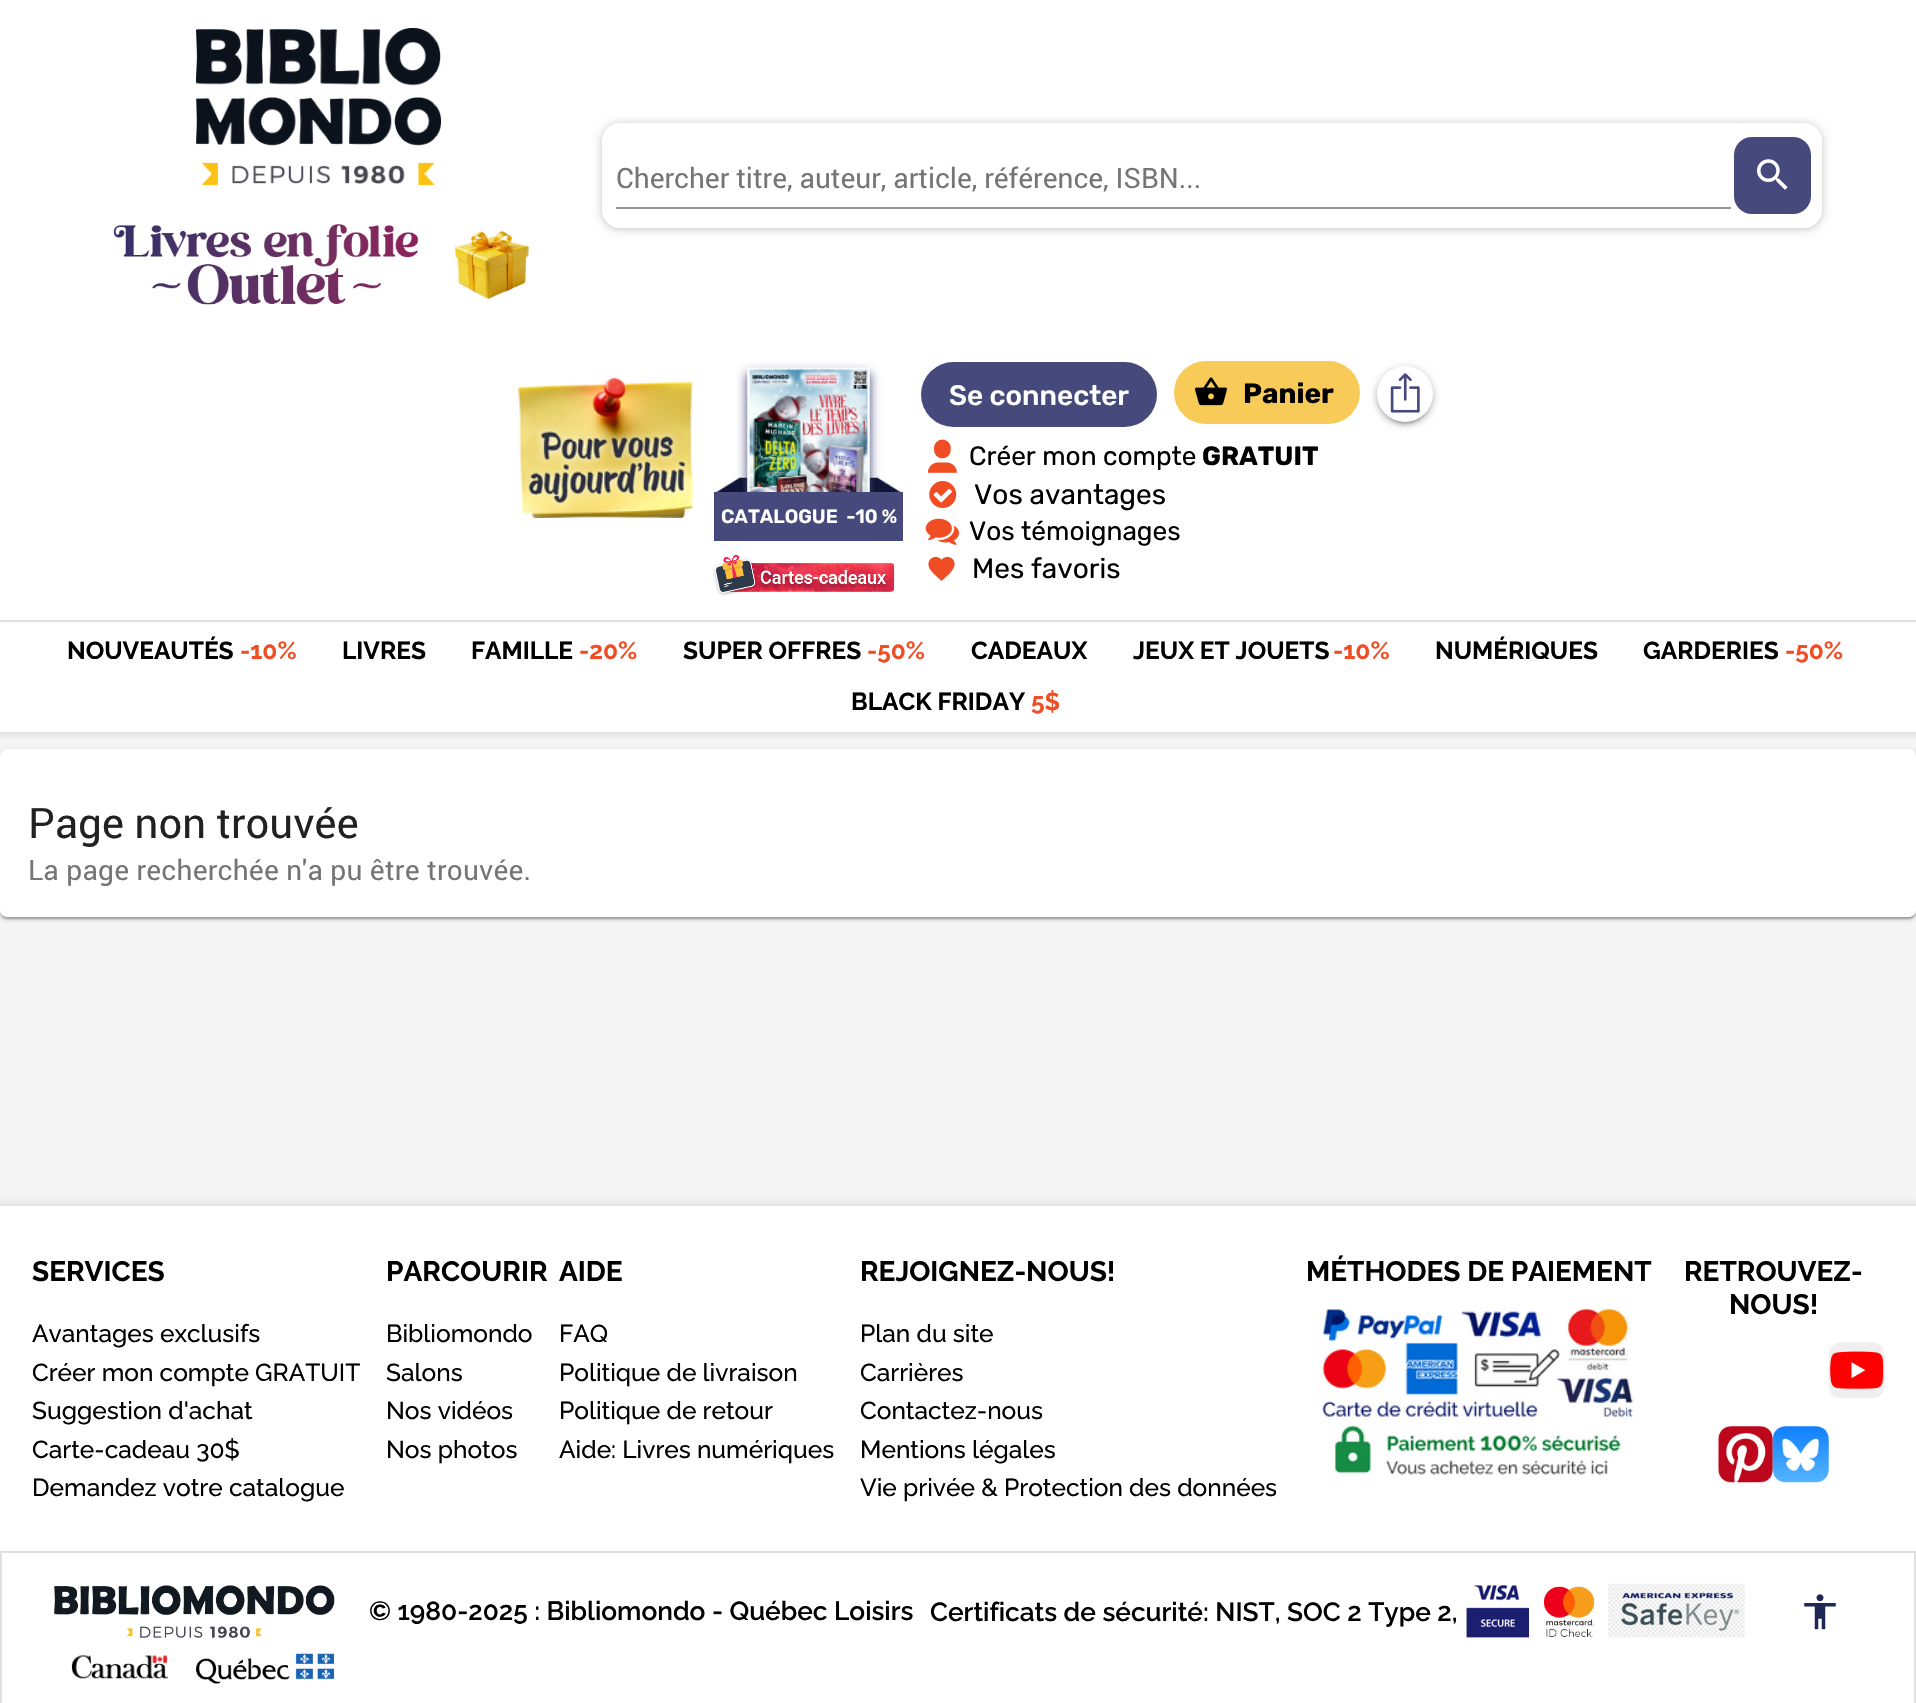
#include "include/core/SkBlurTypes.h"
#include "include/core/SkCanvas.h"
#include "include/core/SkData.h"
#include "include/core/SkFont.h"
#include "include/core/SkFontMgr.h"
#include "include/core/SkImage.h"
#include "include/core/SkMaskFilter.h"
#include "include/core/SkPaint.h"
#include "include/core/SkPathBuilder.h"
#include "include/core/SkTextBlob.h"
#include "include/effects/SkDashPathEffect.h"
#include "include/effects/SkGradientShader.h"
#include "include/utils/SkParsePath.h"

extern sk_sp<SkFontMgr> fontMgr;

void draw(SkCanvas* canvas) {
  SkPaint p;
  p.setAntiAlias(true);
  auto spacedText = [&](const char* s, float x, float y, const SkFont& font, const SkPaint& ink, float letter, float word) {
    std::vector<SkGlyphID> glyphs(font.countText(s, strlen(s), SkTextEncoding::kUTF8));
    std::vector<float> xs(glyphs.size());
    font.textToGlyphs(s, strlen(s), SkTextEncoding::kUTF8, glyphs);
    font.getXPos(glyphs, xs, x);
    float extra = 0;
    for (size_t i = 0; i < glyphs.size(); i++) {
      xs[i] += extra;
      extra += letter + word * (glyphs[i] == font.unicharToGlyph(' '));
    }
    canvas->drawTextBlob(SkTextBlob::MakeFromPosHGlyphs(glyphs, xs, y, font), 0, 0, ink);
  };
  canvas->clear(SkColorSetRGB(245, 245, 245));
  p.setColor(SkColorSetARGB(26, 0, 0, 0));
  p.setMaskFilter(SkMaskFilter::MakeBlur(kNormal_SkBlurStyle, 2.5f));
  canvas->drawRect(SkRect::MakeLTRB(-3, -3, 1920, 735), p);
  p.setMaskFilter(nullptr);
  p.setColor(SK_ColorWHITE);
  canvas->drawRect(SkRect::MakeLTRB(0, 0, 1916, 732), p);
  canvas->drawImageRect(SkImages::DeferredFromEncodedData(SkData::MakeFromFileName("images/1.png")), SkRect::MakeLTRB(196, 28, 441, 186), SkSamplingOptions());
  canvas->drawImageRect(SkImages::DeferredFromEncodedData(SkData::MakeFromFileName("images/2.png")), SkRect::MakeLTRB(113, 224, 419, 305), SkSamplingOptions());
  canvas->drawImageRect(SkImages::DeferredFromEncodedData(SkData::MakeFromFileName("images/3.png")), SkRect::MakeLTRB(454, 231, 530, 300), SkSamplingOptions());
  p.setColor(SkColorSetARGB(31, 0, 0, 0));
  p.setMaskFilter(SkMaskFilter::MakeBlur(kNormal_SkBlurStyle, 3.5f));
  canvas->drawRoundRect(SkRect::MakeLTRB(602, 124, 1822, 229), 18, 18, p);
  p.setMaskFilter(nullptr);
  p.setMaskFilter(SkMaskFilter::MakeBlur(kNormal_SkBlurStyle, 5));
  canvas->drawRoundRect(SkRect::MakeLTRB(602, 124, 1822, 229), 18, 18, p);
  p.setMaskFilter(nullptr);
  p.setColor(SK_ColorWHITE);
  canvas->drawRoundRect(SkRect::MakeLTRB(602, 123, 1822, 228), 18, 18, p);
  p.setColor(SkColorSetRGB(148, 148, 148));
  canvas->drawRect(SkRect::MakeLTRB(616, 207, 1731, 209), p);
  p.setColor(SkColorSetRGB(69, 73, 123));
  canvas->drawRoundRect(SkRect::MakeLTRB(1734, 137, 1811, 214), 18, 18, p);
  canvas->drawImageRect(SkImages::DeferredFromEncodedData(SkData::MakeFromFileName("images/4.png")), SkRect::MakeLTRB(1757, 159, 1788, 190), SkSamplingOptions());
  canvas->drawImageRect(SkImages::DeferredFromEncodedData(SkData::MakeFromFileName("images/5.png")), SkRect::MakeLTRB(518, 378, 693, 518), SkSamplingOptions());
  canvas->drawImageRect(SkImages::DeferredFromEncodedData(SkData::MakeFromFileName("images/7.png")), SkRect::MakeLTRB(716, 477, 901, 492), SkSamplingOptions());
  p.setMaskFilter(SkMaskFilter::MakeBlur(kNormal_SkBlurStyle, 5));
  canvas->drawRect(SkRect::MakeLTRB(747, 373, 870, 532), p);
  p.setMaskFilter(nullptr);
  canvas->drawImageRect(SkImages::DeferredFromEncodedData(SkData::MakeFromFileName("images/6.png")), SkRect::MakeLTRB(747, 367, 870, 492), SkSamplingOptions());
  canvas->drawRect(SkRect::MakeLTRB(714, 492, 903, 541), p);
  canvas->drawImageRect(SkImages::DeferredFromEncodedData(SkData::MakeFromFileName("images/8.png")), SkRect::MakeLTRB(713, 554, 895, 596), SkSamplingOptions());
  canvas->drawRoundRect(SkRect::MakeLTRB(921, 362, 1157, 427), 32.5f, 32.5f, p);
  p.setColor(SkColorSetRGB(248, 203, 88));
  canvas->drawRoundRect(SkRect::MakeLTRB(1174, 361, 1360, 424), 31.5f, 31.5f, p);
  canvas->drawImageRect(SkImages::DeferredFromEncodedData(SkData::MakeFromFileName("images/9.png")), SkRect::MakeLTRB(1195, 377, 1227, 406), SkSamplingOptions());
  p.setColor(SkColorSetARGB(31, 0, 0, 0));
  p.setMaskFilter(SkMaskFilter::MakeBlur(kNormal_SkBlurStyle, 1));
  canvas->drawRoundRect(SkRect::MakeLTRB(1381, 375, 1430, 424), 24.5f, 24.5f, p);
  p.setMaskFilter(nullptr);
  p.setColor(SkColorSetARGB(36, 0, 0, 0));
  p.setMaskFilter(SkMaskFilter::MakeBlur(kNormal_SkBlurStyle, 2));
  canvas->drawRoundRect(SkRect::MakeLTRB(1377, 369, 1433, 425), 28, 28, p);
  p.setMaskFilter(nullptr);
  p.setColor(SkColorSetARGB(51, 0, 0, 0));
  p.setMaskFilter(SkMaskFilter::MakeBlur(kNormal_SkBlurStyle, 4.5f));
  canvas->drawRoundRect(SkRect::MakeLTRB(1377, 368, 1433, 424), 28, 28, p);
  p.setMaskFilter(nullptr);
  p.setColor(SK_ColorWHITE);
  canvas->drawCircle(1405, 394, 28, p);
  canvas->drawImageRect(SkImages::DeferredFromEncodedData(SkData::MakeFromFileName("images/10.png")), SkRect::MakeLTRB(1390, 373, 1420, 413), SkSamplingOptions());
  canvas->drawImageRect(SkImages::DeferredFromEncodedData(SkData::MakeFromFileName("images/11.png")), SkRect::MakeLTRB(927, 439, 957, 473), SkSamplingOptions());
  canvas->drawImageRect(SkImages::DeferredFromEncodedData(SkData::MakeFromFileName("images/12.png")), SkRect::MakeLTRB(929, 481, 957, 508), SkSamplingOptions());
  canvas->drawImageRect(SkImages::DeferredFromEncodedData(SkData::MakeFromFileName("images/13.png")), SkRect::MakeLTRB(925, 518, 959, 545), SkSamplingOptions());
  canvas->drawImageRect(SkImages::DeferredFromEncodedData(SkData::MakeFromFileName("images/14.png")), SkRect::MakeLTRB(928, 556, 955, 581), SkSamplingOptions());
  p.setColor(SkColorSetRGB(224, 224, 224));
  canvas->drawRect(SkRect::MakeLTRB(0, 620, 1916, 622), p);
  p.setColor(SkColorSetARGB(31, 0, 0, 0));
  p.setMaskFilter(SkMaskFilter::MakeBlur(kNormal_SkBlurStyle, 1));
  canvas->drawRoundRect(SkRect::MakeLTRB(2, 754, 1915, 919), 5, 5, p);
  p.setMaskFilter(nullptr);
  p.setColor(SkColorSetARGB(36, 0, 0, 0));
  p.setMaskFilter(SkMaskFilter::MakeBlur(kNormal_SkBlurStyle, 1));
  canvas->drawRoundRect(SkRect::MakeLTRB(0, 751, 1916, 919), 7, 7, p);
  p.setMaskFilter(nullptr);
  p.setColor(SkColorSetARGB(51, 0, 0, 0));
  p.setMaskFilter(SkMaskFilter::MakeBlur(kNormal_SkBlurStyle, 2.5f));
  canvas->drawRoundRect(SkRect::MakeLTRB(0, 751, 1916, 919), 7, 7, p);
  p.setMaskFilter(nullptr);
  p.setColor(SK_ColorWHITE);
  canvas->drawRoundRect(SkRect::MakeLTRB(0, 749, 1916, 917), 7, 7, p);
  p.setColor(SkColorSetARGB(41, 0, 0, 0));
  p.setMaskFilter(SkMaskFilter::MakeBlur(kNormal_SkBlurStyle, 5));
  canvas->drawRect(SkRect::MakeLTRB(-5, 1206, 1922, 1561), p);
  p.setMaskFilter(nullptr);
  p.setColor(SK_ColorWHITE);
  canvas->drawRect(SkRect::MakeLTRB(0, 1206, 1916, 1551), p);
  canvas->drawImageRect(SkImages::DeferredFromEncodedData(SkData::MakeFromFileName("images/15.png")), SkRect::MakeLTRB(1322, 1308, 1633, 1475), SkSamplingOptions());
  canvas->drawImageRect(SkImages::DeferredFromEncodedData(SkData::MakeFromFileName("images/16.png")), SkRect::MakeLTRB(1828, 1342, 1885, 1399), SkSamplingOptions());
  canvas->drawImageRect(SkImages::DeferredFromEncodedData(SkData::MakeFromFileName("images/17.png")), SkRect::MakeLTRB(1718, 1426, 1773, 1483), SkSamplingOptions());
  canvas->drawImageRect(SkImages::DeferredFromEncodedData(SkData::MakeFromFileName("images/18.png")), SkRect::MakeLTRB(1772, 1426, 1829, 1483), SkSamplingOptions());
  canvas->drawRect(SkRect::MakeLTRB(1, 1552, 1915, 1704), p);
  p.setStyle(SkPaint::kStroke_Style);
  p.setStrokeWidth(2);
  p.setColor(SkColorSetRGB(224, 224, 224));
  canvas->drawRect(SkRect::MakeLTRB(1, 1552, 1915, 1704), p);
  canvas->drawImageRect(SkImages::DeferredFromEncodedData(SkData::MakeFromFileName("images/19.png")), SkRect::MakeLTRB(54, 1585, 335, 1638), SkSamplingOptions());
  canvas->drawImageRect(SkImages::DeferredFromEncodedData(SkData::MakeFromFileName("images/20.png")), SkRect::MakeLTRB(1466, 1583, 1745, 1638), SkSamplingOptions());
  canvas->drawImageRect(SkImages::DeferredFromEncodedData(SkData::MakeFromFileName("images/21.png")), SkRect::MakeLTRB(1804, 1594, 1836, 1630), SkSamplingOptions());
  canvas->drawImageRect(SkImages::DeferredFromEncodedData(SkData::MakeFromFileName("images/22.png")), SkRect::MakeLTRB(71, 1655, 168, 1679), SkSamplingOptions());
  canvas->drawImageRect(SkImages::DeferredFromEncodedData(SkData::MakeFromFileName("images/23.png")), SkRect::MakeLTRB(196, 1653, 335, 1684), SkSamplingOptions());
  SkFont font1(fontMgr->matchFamilyStyle("Roboto", SkFontStyle::Normal()), 28);
  font1.setSubpixel(true);
  p.setStyle(SkPaint::kFill_Style);
  p.setColor(SkColorSetRGB(117, 117, 117));
  canvas->drawString("Chercher titre, auteur, article, référence, ISBN...", 616, 188, font1, p);
  SkFont font2(fontMgr->matchFamilyStyle("Rubik", SkFontStyle(600, SkFontStyle::kNormal_Width, SkFontStyle::kUpright_Slant)), 19.25f);
  font2.setSubpixel(true);
  p.setColor(SK_ColorWHITE);
  canvas->drawString("CATALOGUE  -10 %", 721, 523, font2, p);
  SkFont font3(fontMgr->matchFamilyStyle("Rubik", SkFontStyle(500, SkFontStyle::kNormal_Width, SkFontStyle::kUpright_Slant)), 28);
  font3.setSubpixel(true);
  canvas->drawString("Se connecter", 949, 405, font3, p);
  SkFont font4(fontMgr->matchFamilyStyle("Rubik", SkFontStyle::Bold()), 28);
  font4.setSubpixel(true);
  p.setColor(SK_ColorBLACK);
  canvas->drawString("Panier", 1243, 403, font4, p);
  SkFont font5(fontMgr->matchFamilyStyle("Rubik", SkFontStyle::Normal()), 26.25f);
  font5.setSubpixel(true);
  canvas->drawString("Créer mon compte", 969, 465, font5, p);
  SkFont font6(fontMgr->matchFamilyStyle("Rubik", SkFontStyle::Bold()), 26.25f);
  font6.setSubpixel(true);
  canvas->drawString("GRATUIT", 1202, 465, font6, p);
  SkFont font7(fontMgr->matchFamilyStyle("Rubik", SkFontStyle::Normal()), 28);
  font7.setSubpixel(true);
  canvas->drawString("Vos avantages", 974, 504, font7, p);
  canvas->drawString("Vos témoignages", 969, 540, font5, p);
  canvas->drawString("Mes favoris", 972, 578, font7, p);
  SkFont font8(fontMgr->matchFamilyStyle("Raleway", SkFontStyle::Bold()), 24.5f);
  font8.setSubpixel(true);
  canvas->drawString("NOUVEAUTÉS", 67, 659, font8, p);
  p.setColor(SkColorSetRGB(240, 77, 36));
  canvas->drawString("-10%", 240, 659, font8, p);
  p.setColor(SK_ColorBLACK);
  canvas->drawString("LIVRES", 342, 659, font8, p);
  canvas->drawString("FAMILLE", 471, 659, font8, p);
  p.setColor(SkColorSetRGB(240, 77, 36));
  canvas->drawString("-20%", 579, 659, font8, p);
  p.setColor(SK_ColorBLACK);
  canvas->drawString("SUPER OFFRES", 683, 659, font8, p);
  p.setColor(SkColorSetRGB(240, 77, 36));
  canvas->drawString("-50%", 867, 659, font8, p);
  p.setColor(SK_ColorBLACK);
  canvas->drawString("CADEAUX", 971, 659, font8, p);
  canvas->drawString("JEUX ET JOUETS", 1133, 659, font8, p);
  p.setColor(SkColorSetRGB(240, 77, 36));
  canvas->drawString("-10%", 1333, 659, font8, p);
  p.setColor(SK_ColorBLACK);
  canvas->drawString("NUMÉRIQUES", 1435, 659, font8, p);
  canvas->drawString("GARDERIES", 1643, 659, font8, p);
  p.setColor(SkColorSetRGB(240, 77, 36));
  canvas->drawString("-50%", 1785, 659, font8, p);
  p.setColor(SK_ColorBLACK);
  canvas->drawString("BLACK FRIDAY", 851, 710, font8, p);
  p.setColor(SkColorSetRGB(240, 77, 36));
  canvas->drawString("5$", 1031, 710, font8, p);
  SkFont font9(fontMgr->matchFamilyStyle("Roboto", SkFontStyle::Normal()), 42);
  font9.setSubpixel(true);
  p.setColor(SkColorSetRGB(33, 33, 33));
  canvas->drawString("Page non trouvée", 28, 838, font9, p);
  p.setColor(SkColorSetRGB(117, 117, 117));
  spacedText("La page recherchée n'a pu être trouvée.", 28, 880, font1, p, 0.25f, 0);
  SkFont font10(fontMgr->matchFamilyStyle("Raleway", SkFontStyle::Bold()), 28);
  font10.setSubpixel(true);
  p.setColor(SK_ColorBLACK);
  canvas->drawString("SERVICES", 32, 1281, font10, p);
  SkFont font11(fontMgr->matchFamilyStyle("Raleway", SkFontStyle(500, SkFontStyle::kNormal_Width, SkFontStyle::kUpright_Slant)), 24.5f);
  font11.setSubpixel(true);
  canvas->drawString("Avantages exclusifs", 32, 1342, font11, p);
  canvas->drawString("Créer mon compte GRATUIT", 32, 1381, font11, p);
  canvas->drawString("Suggestion d'achat", 32, 1419, font11, p);
  canvas->drawString("Carte-cadeau 30$", 32, 1458, font11, p);
  canvas->drawString("Demandez votre catalogue", 32, 1496, font11, p);
  canvas->drawString("PARCOURIR", 386, 1281, font10, p);
  canvas->drawString("Bibliomondo", 386, 1342, font11, p);
  canvas->drawString("Salons", 386, 1381, font11, p);
  canvas->drawString("Nos vidéos", 386, 1419, font11, p);
  canvas->drawString("Nos photos", 386, 1458, font11, p);
  canvas->drawString("AIDE", 559, 1281, font10, p);
  canvas->drawString("FAQ", 559, 1342, font11, p);
  canvas->drawString("Politique de livraison", 559, 1381, font11, p);
  canvas->drawString("Politique de retour", 559, 1419, font11, p);
  canvas->drawString("Aide: Livres numériques", 559, 1458, font11, p);
  canvas->drawString("REJOIGNEZ-NOUS!", 860, 1281, font10, p);
  canvas->drawString("Plan du site", 860, 1342, font11, p);
  canvas->drawString("Carrières", 860, 1381, font11, p);
  canvas->drawString("Contactez-nous", 860, 1419, font11, p);
  canvas->drawString("Mentions légales", 860, 1458, font11, p);
  canvas->drawString("Vie privée & Protection des données", 860, 1496, font11, p);
  canvas->drawString("MÉTHODES DE PAIEMENT", 1306, 1281, font10, p);
  canvas->drawString("RETROUVEZ-", 1684, 1281, font10, p);
  canvas->drawString("NOUS!", 1729, 1314, font10, p);
  SkFont font12(fontMgr->matchFamilyStyle("Raleway", SkFontStyle(600, SkFontStyle::kNormal_Width, SkFontStyle::kUpright_Slant)), 26.25f);
  font12.setSubpixel(true);
  canvas->drawString("© 1980-2025 : Bibliomondo - Québec Loisirs", 369, 1620, font12, p);
  canvas->drawString("Certificats de sécurité: NIST, SOC 2 Type 2,", 930, 1621, font12, p);
}
